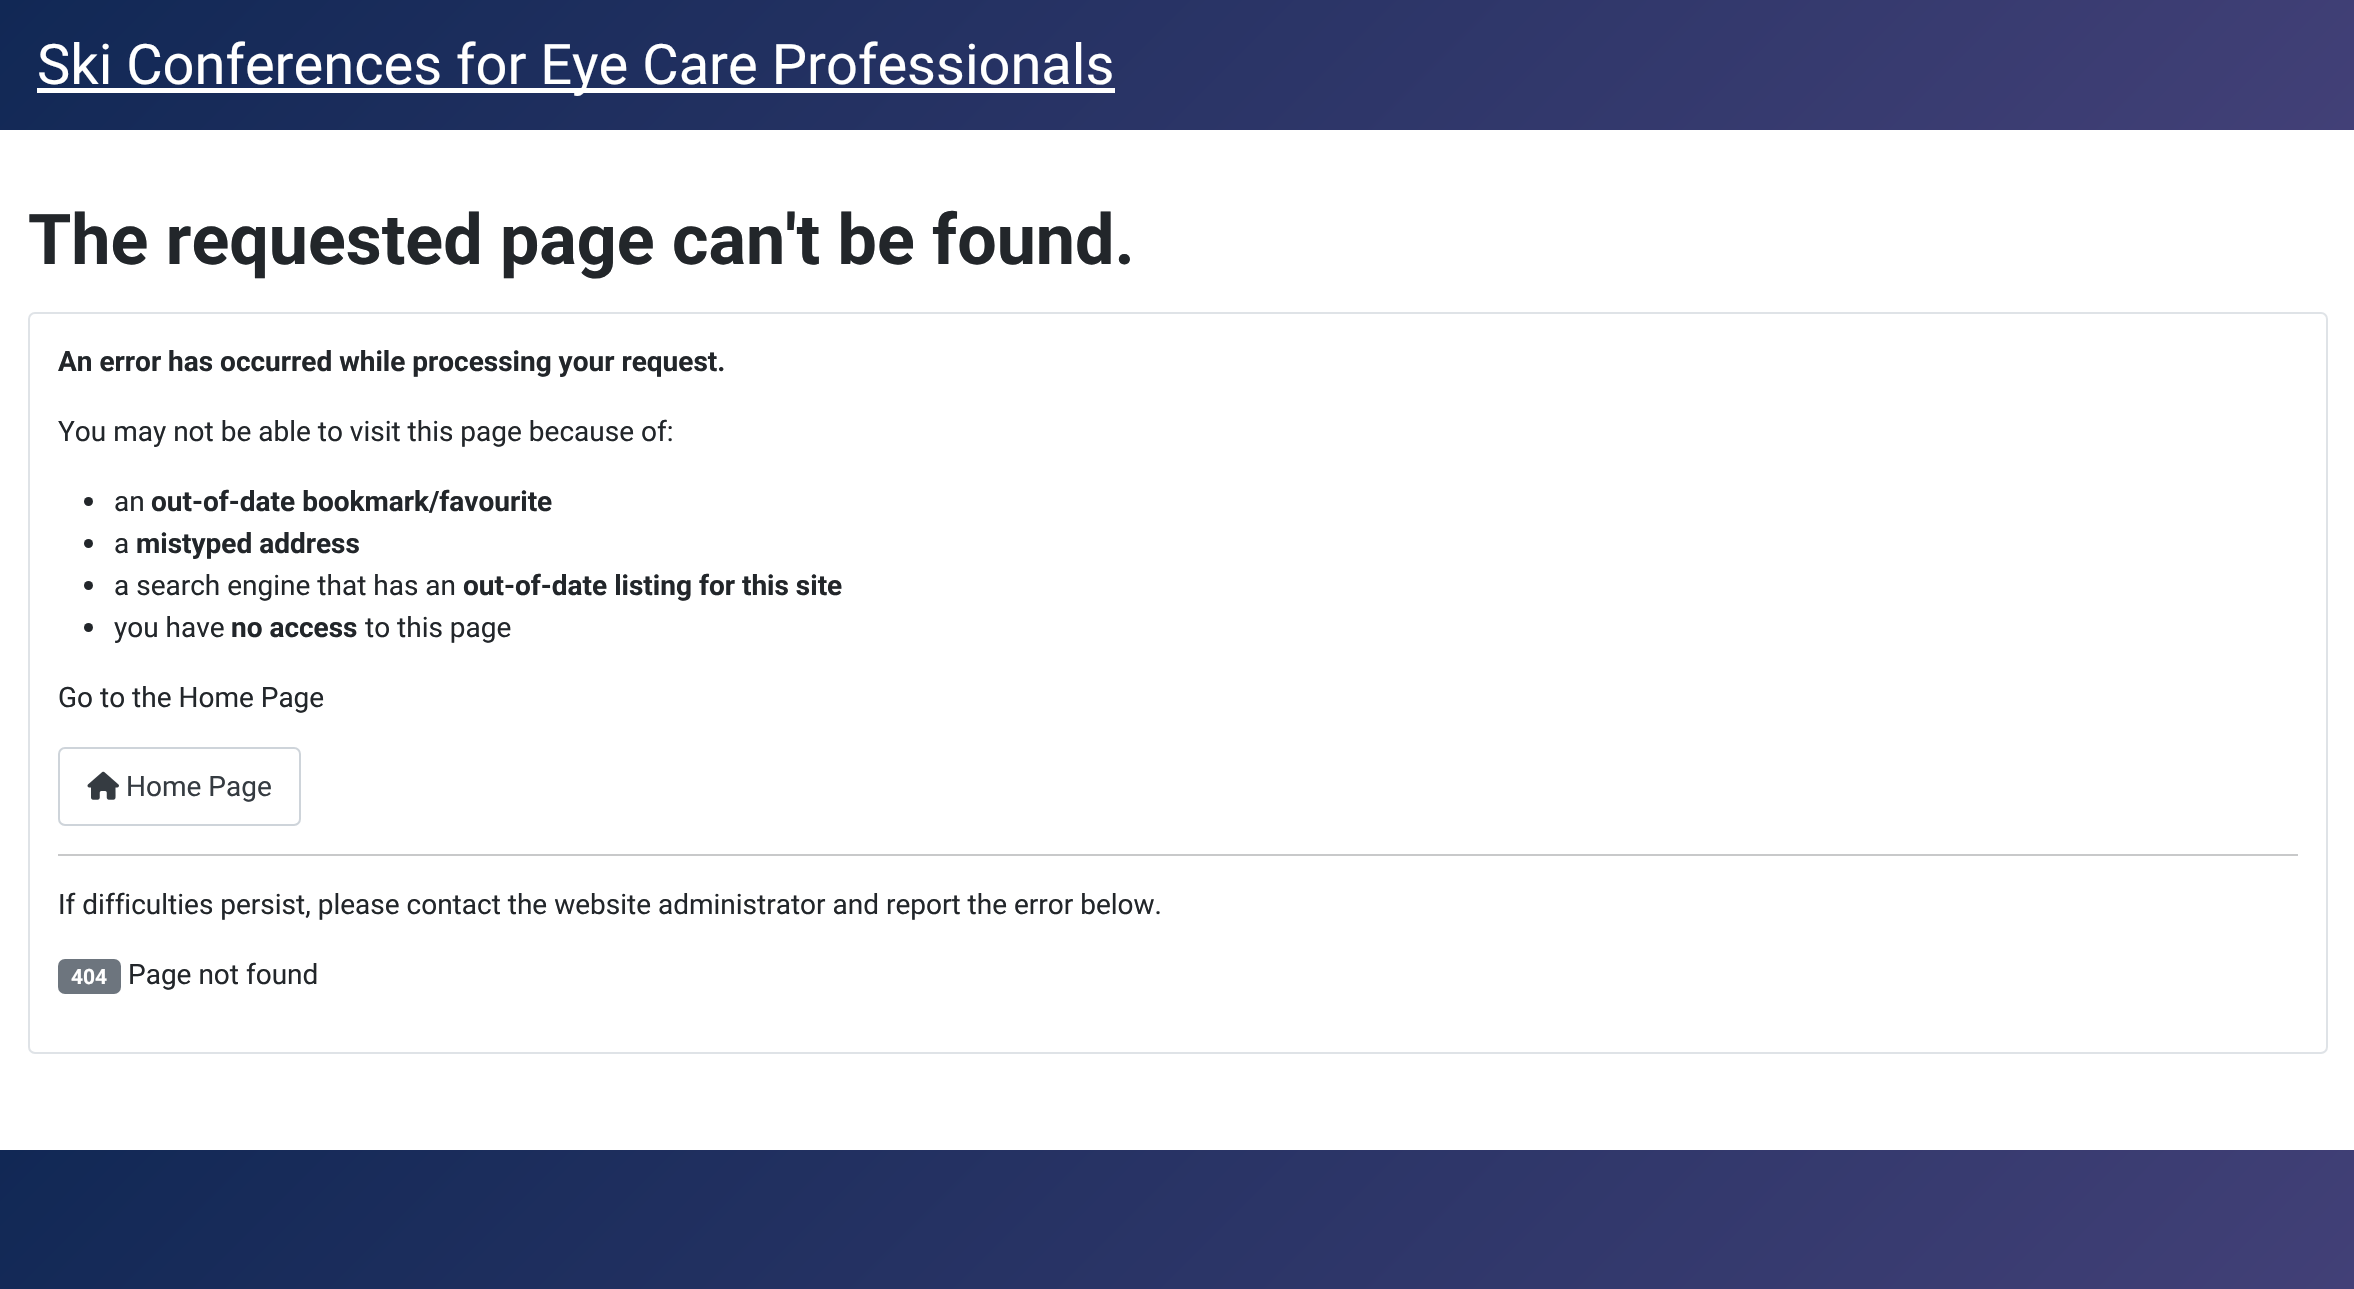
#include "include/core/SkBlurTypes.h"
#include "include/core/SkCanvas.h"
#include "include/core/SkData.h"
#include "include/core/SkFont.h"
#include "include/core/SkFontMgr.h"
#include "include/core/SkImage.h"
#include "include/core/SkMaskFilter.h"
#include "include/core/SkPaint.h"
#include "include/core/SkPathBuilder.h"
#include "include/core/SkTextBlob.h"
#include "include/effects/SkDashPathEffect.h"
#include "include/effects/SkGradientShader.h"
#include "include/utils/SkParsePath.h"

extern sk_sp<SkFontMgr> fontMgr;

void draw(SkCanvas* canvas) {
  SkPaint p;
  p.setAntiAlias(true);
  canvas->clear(SK_ColorWHITE);
  {
    const SkColor colors[] = {SkColorSetRGB(17, 40, 85), SkColorSetRGB(66, 64, 119)};
    const float stops[] = {0, 1};
    const SkPoint ends[] = {{556, -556}, {1799, 686}};
    p.setShader(SkGradientShader::MakeLinear(ends, colors, stops, 2, SkTileMode::kClamp));
    p.setAlpha(255);
  }
  canvas->drawRect(SkRect::MakeLTRB(0, 0, 2354, 130), p);
  p.setShader(nullptr);
  p.setColor(SK_ColorWHITE);
  canvas->drawRect(SkRect::MakeLTRB(37, 88, 1115, 93), p);
  p.setStyle(SkPaint::kStroke_Style);
  p.setStrokeWidth(2);
  p.setColor(SkColorSetRGB(223, 227, 231));
  canvas->drawRoundRect(SkRect::MakeLTRB(29, 313, 2327, 1053), 6, 6, p);
  p.setStyle(SkPaint::kFill_Style);
  p.setColor(SkColorSetRGB(34, 38, 42));
  canvas->drawCircle(88.5f, 501.5f, 4.5f, p);
  canvas->drawCircle(88.5f, 543.5f, 4.5f, p);
  canvas->drawCircle(88.5f, 585.5f, 4.5f, p);
  canvas->drawCircle(88.5f, 627.5f, 4.5f, p);
  p.setStyle(SkPaint::kStroke_Style);
  p.setColor(SkColorSetRGB(206, 212, 218));
  canvas->drawRoundRect(SkRect::MakeLTRB(59, 748, 300, 825), 6, 6, p);
  canvas->drawImageRect(SkImages::DeferredFromEncodedData(SkData::MakeFromFileName("images/1.png")), SkRect::MakeLTRB(87, 771, 119, 800), SkSamplingOptions());
  p.setStyle(SkPaint::kFill_Style);
  p.setColor(SkColorSetRGB(200, 201, 202));
  canvas->drawRect(SkRect::MakeLTRB(58, 854, 2298, 856), p);
  p.setColor(SkColorSetRGB(109, 117, 126));
  canvas->drawRoundRect(SkRect::MakeLTRB(58, 959, 121, 994), 7, 7, p);
  {
    const SkColor colors[] = {SkColorSetRGB(17, 40, 85), SkColorSetRGB(66, 64, 119)};
    const float stops[] = {0, 1};
    const SkPoint ends[] = {{554, 596}, {1802, 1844}};
    p.setShader(SkGradientShader::MakeLinear(ends, colors, stops, 2, SkTileMode::kClamp));
    p.setAlpha(255);
  }
  canvas->drawRect(SkRect::MakeLTRB(0, 1150, 2354, 1289), p);
  SkFont font1(fontMgr->matchFamilyStyle("Roboto", SkFontStyle::Normal()), 56);
  font1.setSubpixel(true);
  p.setShader(nullptr);
  p.setColor(SK_ColorWHITE);
  canvas->drawString("Ski Conferences for Eye Care Professionals", 37, 84, font1, p);
  SkFont font2(fontMgr->matchFamilyStyle("Roboto", SkFontStyle::Bold()), 70);
  font2.setSubpixel(true);
  p.setColor(SkColorSetRGB(34, 38, 42));
  canvas->drawString("The requested page can't be found.", 28, 264, font2, p);
  SkFont font3(fontMgr->matchFamilyStyle("Roboto", SkFontStyle::Bold()), 28);
  font3.setSubpixel(true);
  canvas->drawString("An error has occurred while processing your request.", 58, 371, font3, p);
  SkFont font4(fontMgr->matchFamilyStyle("Roboto", SkFontStyle::Normal()), 28);
  font4.setSubpixel(true);
  canvas->drawString("You may not be able to visit this page because of:", 58, 441, font4, p);
  canvas->drawString("an", 114, 511, font4, p);
  canvas->drawString("out-of-date bookmark/favourite", 151, 511, font3, p);
  canvas->drawString("a", 114, 553, font4, p);
  canvas->drawString("mistyped address", 136, 553, font3, p);
  canvas->drawString("a search engine that has an", 114, 595, font4, p);
  canvas->drawString("out-of-date listing for this site", 463, 595, font3, p);
  canvas->drawString("you have", 114, 637, font4, p);
  canvas->drawString("no access", 231, 637, font3, p);
  canvas->drawString("to this page", 365, 637, font4, p);
  canvas->drawString("Go to the Home Page", 58, 707, font4, p);
  p.setColor(SkColorSetRGB(53, 59, 65));
  canvas->drawString("Home Page", 126, 796, font4, p);
  p.setColor(SkColorSetRGB(34, 38, 42));
  canvas->drawString("If difficulties persist, please contact the website administrator and report the error below.", 58, 914, font4, p);
  SkFont font5(fontMgr->matchFamilyStyle("Roboto", SkFontStyle::Bold()), 21);
  font5.setSubpixel(true);
  p.setColor(SK_ColorWHITE);
  canvas->drawString("404", 71, 984, font5, p);
  p.setColor(SkColorSetRGB(34, 38, 42));
  canvas->drawString("Page not found", 128, 984, font4, p);
}
